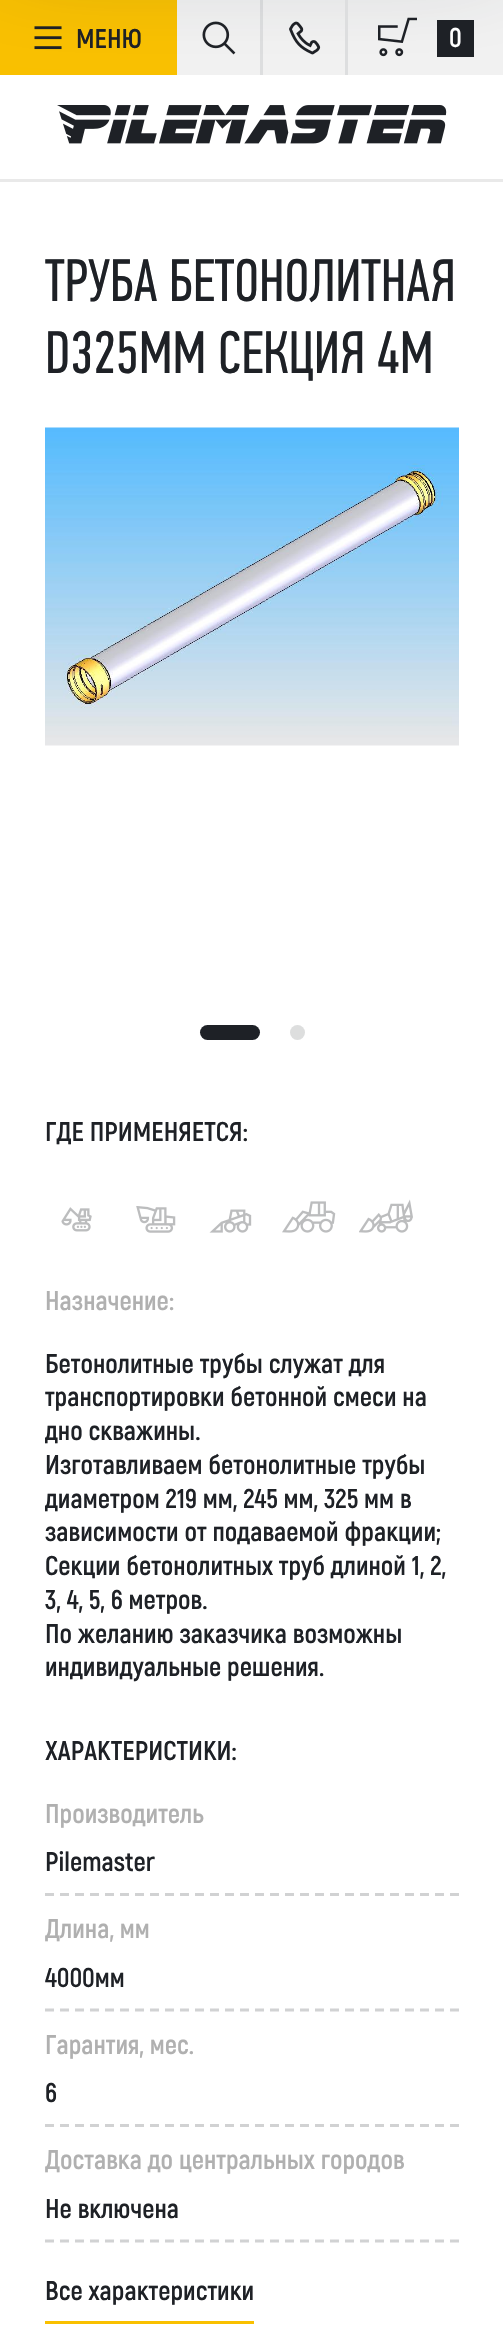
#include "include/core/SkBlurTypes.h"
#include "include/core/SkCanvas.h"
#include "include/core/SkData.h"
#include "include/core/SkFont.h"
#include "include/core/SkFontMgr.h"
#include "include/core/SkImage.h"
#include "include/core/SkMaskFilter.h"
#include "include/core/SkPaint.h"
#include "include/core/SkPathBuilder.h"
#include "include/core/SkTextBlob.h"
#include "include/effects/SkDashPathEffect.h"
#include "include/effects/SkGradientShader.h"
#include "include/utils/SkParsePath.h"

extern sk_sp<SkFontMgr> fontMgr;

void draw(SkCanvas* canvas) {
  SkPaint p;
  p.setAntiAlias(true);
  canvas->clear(SK_ColorWHITE);
  p.setColor(SkColorSetRGB(233, 233, 233));
  canvas->drawRect(SkRect::MakeLTRB(0, 179, 503, 182), p);
  p.setColor(SkColorSetRGB(241, 241, 241));
  canvas->drawRect(SkRect::MakeLTRB(177, 0, 503, 75), p);
  canvas->drawImageRect(SkImages::DeferredFromEncodedData(SkData::MakeFromFileName("images/1.png")), SkRect::MakeLTRB(202, 21, 236, 55), SkSamplingOptions());
  p.setColor(SkColorSetRGB(221, 222, 223));
  canvas->drawRect(SkRect::MakeLTRB(260, 0, 263, 75), p);
  p.setColor(SkColorSetRGB(249, 192, 0));
  canvas->drawRect(SkRect::MakeLTRB(0, 0, 177, 75), p);
  canvas->drawImageRect(SkImages::DeferredFromEncodedData(SkData::MakeFromFileName("images/2.png")), SkRect::MakeLTRB(34, 26, 62, 50), SkSamplingOptions());
  canvas->drawImageRect(SkImages::DeferredFromEncodedData(SkData::MakeFromFileName("images/5.png")), SkRect::MakeLTRB(57, 105, 447, 144), SkSamplingOptions());
  p.setColor(SkColorSetARGB(102, 42, 51, 66));
  p.setMaskFilter(SkMaskFilter::MakeBlur(kNormal_SkBlurStyle, 56));
  canvas->drawRect(SkRect::MakeLTRB(0, -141, 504, -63), p);
  p.setMaskFilter(nullptr);
  canvas->drawImageRect(SkImages::DeferredFromEncodedData(SkData::MakeFromFileName("images/3.png")), SkRect::MakeLTRB(289, 21, 321, 55), SkSamplingOptions());
  p.setColor(SkColorSetRGB(221, 222, 223));
  canvas->drawRect(SkRect::MakeLTRB(345, 0, 348, 75), p);
  canvas->drawImageRect(SkImages::DeferredFromEncodedData(SkData::MakeFromFileName("images/4.png")), SkRect::MakeLTRB(378, 17, 417, 57), SkSamplingOptions());
  p.setColor(SkColorSetRGB(30, 33, 38));
  canvas->drawRect(SkRect::MakeLTRB(437, 20, 474, 57), p);
  canvas->drawImageRect(SkImages::DeferredFromEncodedData(SkData::MakeFromFileName("images/6.png")), SkRect::MakeLTRB(45, 427, 459, 746), SkSamplingOptions());
  canvas->drawRoundRect(SkRect::MakeLTRB(200, 1025, 260, 1040), 7.5f, 7.5f, p);
  p.setColor(SkColorSetRGB(221, 222, 222));
  canvas->drawCircle(297.5f, 1032.5f, 7.5f, p);
  canvas->drawImageRect(SkImages::DeferredFromEncodedData(SkData::MakeFromFileName("images/7.png")), SkRect::MakeLTRB(61, 1207, 92, 1232), SkSamplingOptions());
  canvas->drawImageRect(SkImages::DeferredFromEncodedData(SkData::MakeFromFileName("images/8.png")), SkRect::MakeLTRB(136, 1206, 176, 1233), SkSamplingOptions());
  canvas->drawImageRect(SkImages::DeferredFromEncodedData(SkData::MakeFromFileName("images/9.png")), SkRect::MakeLTRB(209, 1209, 252, 1233), SkSamplingOptions());
  canvas->drawImageRect(SkImages::DeferredFromEncodedData(SkData::MakeFromFileName("images/10.png")), SkRect::MakeLTRB(282, 1201, 336, 1233), SkSamplingOptions());
  canvas->drawImageRect(SkImages::DeferredFromEncodedData(SkData::MakeFromFileName("images/11.png")), SkRect::MakeLTRB(359, 1199, 413, 1233), SkSamplingOptions());
  p.setStyle(SkPaint::kStroke_Style);
  p.setStrokeWidth(3);
  p.setColor(SkColorSetRGB(209, 210, 211));
  p.setPathEffect(SkDashPathEffect::Make({{9, 6}}, 0));
  canvas->drawPath(SkPathBuilder().moveTo(45, 1894.5f).lineTo(459, 1894.5f).detach(), p);
  p.setPathEffect(nullptr);
  p.setPathEffect(SkDashPathEffect::Make({{9, 6}}, 0));
  canvas->drawPath(SkPathBuilder().moveTo(45, 2010).lineTo(459, 2010).detach(), p);
  p.setPathEffect(nullptr);
  p.setPathEffect(SkDashPathEffect::Make({{9, 6}}, 0));
  canvas->drawPath(SkPathBuilder().moveTo(45, 2125.5f).lineTo(459, 2125.5f).detach(), p);
  p.setPathEffect(nullptr);
  p.setPathEffect(SkDashPathEffect::Make({{9, 6}}, 0));
  canvas->drawPath(SkPathBuilder().moveTo(45, 2241).lineTo(459, 2241).detach(), p);
  p.setPathEffect(nullptr);
  p.setStyle(SkPaint::kFill_Style);
  p.setColor(SkColorSetRGB(249, 192, 0));
  canvas->drawRect(SkRect::MakeLTRB(45, 2321, 254, 2324), p);
  SkFont font1(fontMgr->matchFamilyStyle("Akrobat", SkFontStyle::Bold()), 27);
  font1.setSubpixel(true);
  p.setColor(SkColorSetRGB(30, 33, 38));
  canvas->drawString("МЕНЮ", 76, 48, font1, p);
  p.setColor(SK_ColorWHITE);
  canvas->drawString("0", 449, 47, font1, p);
  SkFont font2(fontMgr->matchFamilyStyle("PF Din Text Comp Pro", SkFontStyle::Normal()), 60);
  font2.setSubpixel(true);
  p.setColor(SkColorSetRGB(30, 33, 38));
  canvas->drawString("ТРУБА БЕТОНОЛИТНАЯ", 45, 301, font2, p);
  canvas->drawString("D325ММ СЕКЦИЯ 4М", 45, 373, font2, p);
  canvas->drawString("ГДЕ ПРИМЕНЯЕТСЯ:", 45, 1141, font1, p);
  p.setColor(SkColorSetRGB(176, 176, 176));
  canvas->drawString("Назначение:", 45, 1310, font1, p);
  p.setColor(SkColorSetRGB(30, 33, 38));
  canvas->drawString("Бетонолитные трубы служат для", 45, 1373, font1, p);
  canvas->drawString("транспортировки бетонной смеси на", 45, 1406, font1, p);
  canvas->drawString("дно скважины.", 45, 1440, font1, p);
  canvas->drawString("Изготавливаем бетонолитные трубы", 45, 1474, font1, p);
  canvas->drawString("диаметром 219 мм, 245 мм, 325 мм в", 45, 1508, font1, p);
  canvas->drawString("зависимости от подаваемой фракции;", 45, 1541, font1, p);
  canvas->drawString("Секции бетонолитных труб длиной 1, 2,", 45, 1575, font1, p);
  canvas->drawString("3, 4, 5, 6 метров.", 45, 1609, font1, p);
  canvas->drawString("По желанию заказчика возможны", 45, 1643, font1, p);
  canvas->drawString("индивидуальные решения.", 45, 1676, font1, p);
  canvas->drawString("ХАРАКТЕРИСТИКИ:", 45, 1760, font1, p);
  p.setColor(SkColorSetRGB(176, 176, 176));
  canvas->drawString("Производитель", 45, 1823, font1, p);
  p.setColor(SkColorSetRGB(30, 33, 38));
  canvas->drawString("Pilemaster", 45, 1871, font1, p);
  p.setColor(SkColorSetRGB(176, 176, 176));
  canvas->drawString("Длина, мм", 45, 1938, font1, p);
  p.setColor(SkColorSetRGB(30, 33, 38));
  canvas->drawString("4000мм", 45, 1987, font1, p);
  p.setColor(SkColorSetRGB(176, 176, 176));
  canvas->drawString("Гарантия, мес.", 45, 2054, font1, p);
  p.setColor(SkColorSetRGB(30, 33, 38));
  canvas->drawString("6", 45, 2102, font1, p);
  p.setColor(SkColorSetRGB(176, 176, 176));
  canvas->drawString("Доставка до центральных городов", 45, 2169, font1, p);
  p.setColor(SkColorSetRGB(30, 33, 38));
  canvas->drawString("Не включена", 45, 2218, font1, p);
  canvas->drawString("Все характеристики", 45, 2300, font1, p);
}
